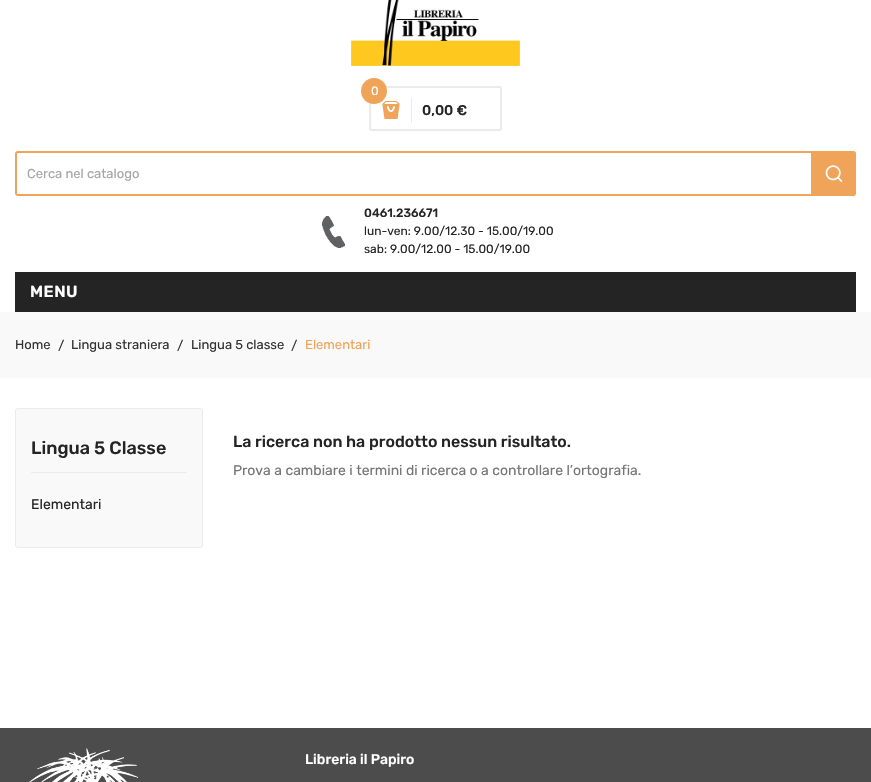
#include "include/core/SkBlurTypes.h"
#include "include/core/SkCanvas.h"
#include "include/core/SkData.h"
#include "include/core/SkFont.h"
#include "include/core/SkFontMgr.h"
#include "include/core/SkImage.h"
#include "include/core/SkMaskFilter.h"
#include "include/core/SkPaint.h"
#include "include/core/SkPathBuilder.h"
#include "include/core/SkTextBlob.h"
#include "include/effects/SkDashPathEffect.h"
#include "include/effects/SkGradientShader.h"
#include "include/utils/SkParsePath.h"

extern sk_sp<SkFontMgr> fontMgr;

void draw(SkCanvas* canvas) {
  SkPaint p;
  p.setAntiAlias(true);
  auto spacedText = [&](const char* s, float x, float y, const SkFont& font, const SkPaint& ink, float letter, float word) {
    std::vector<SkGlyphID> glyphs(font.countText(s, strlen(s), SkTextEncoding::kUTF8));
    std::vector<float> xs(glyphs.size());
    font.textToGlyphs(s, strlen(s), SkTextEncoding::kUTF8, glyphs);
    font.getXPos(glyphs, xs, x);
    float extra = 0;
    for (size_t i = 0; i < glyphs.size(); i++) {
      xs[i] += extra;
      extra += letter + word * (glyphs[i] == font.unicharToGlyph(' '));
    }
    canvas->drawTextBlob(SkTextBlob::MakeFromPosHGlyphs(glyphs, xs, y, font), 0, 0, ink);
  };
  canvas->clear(SK_ColorWHITE);
  canvas->drawImageRect(SkImages::DeferredFromEncodedData(SkData::MakeFromFileName("images/1.png")), SkRect::MakeLTRB(351, 0, 520, 66), SkSamplingOptions());
  p.setStyle(SkPaint::kStroke_Style);
  p.setStrokeWidth(2);
  p.setColor(SkColorSetRGB(235, 235, 235));
  canvas->drawRoundRect(SkRect::MakeLTRB(370, 87, 501, 130), 2, 2, p);
  canvas->drawImageRect(SkImages::DeferredFromEncodedData(SkData::MakeFromFileName("images/2.png")), SkRect::MakeLTRB(382, 101, 400, 119), SkSamplingOptions());
  p.setStyle(SkPaint::kFill_Style);
  p.setColor(SkColorSetRGB(240, 164, 89));
  canvas->drawCircle(374, 91, 13, p);
  p.setColor(SkColorSetRGB(235, 235, 235));
  canvas->drawRect(SkRect::MakeLTRB(411, 98, 412, 123), p);
  p.setStyle(SkPaint::kStroke_Style);
  p.setColor(SkColorSetRGB(240, 164, 89));
  canvas->drawRoundRect(SkRect::MakeLTRB(16, 152, 855, 195), 2, 2, p);
  p.setStyle(SkPaint::kFill_Style);
  canvas->drawPath(SkPathBuilder().moveTo(811, 151).lineTo(853, 151).cubicTo(854.5f, 151, 856, 152.5f, 856, 154).lineTo(856, 193).cubicTo(856, 194.5f, 854.5f, 196, 853, 196).lineTo(811, 196).close().detach(), p);
  canvas->drawImageRect(SkImages::DeferredFromEncodedData(SkData::MakeFromFileName("images/3.png")), SkRect::MakeLTRB(825, 165, 843, 182), SkSamplingOptions());
  canvas->drawImageRect(SkImages::DeferredFromEncodedData(SkData::MakeFromFileName("images/4.png")), SkRect::MakeLTRB(322, 216, 345, 248), SkSamplingOptions());
  p.setColor(SkColorSetRGB(36, 36, 36));
  canvas->drawRect(SkRect::MakeLTRB(15, 272, 856, 312), p);
  p.setColor(SkColorSetRGB(249, 249, 249));
  canvas->drawRect(SkRect::MakeLTRB(0, 312, 871, 378), p);
  canvas->drawRoundRect(SkRect::MakeLTRB(15.5f, 408.5f, 202.5f, 547.5f), 2.5f, 2.5f, p);
  p.setStyle(SkPaint::kStroke_Style);
  p.setStrokeWidth(1);
  p.setColor(SkColorSetRGB(235, 235, 235));
  canvas->drawRoundRect(SkRect::MakeLTRB(15.5f, 408.5f, 202.5f, 547.5f), 2.5f, 2.5f, p);
  p.setStyle(SkPaint::kFill_Style);
  canvas->drawRect(SkRect::MakeLTRB(31, 472, 187, 473), p);
  p.setColor(SkColorSetRGB(76, 76, 76));
  canvas->drawRect(SkRect::MakeLTRB(0, 728, 871, 782), p);
  canvas->drawImageRect(SkImages::DeferredFromEncodedData(SkData::MakeFromFileName("images/5.png")), SkRect::MakeLTRB(29, 748, 139, 782), SkSamplingOptions());
  SkFont font1(fontMgr->matchFamilyStyle("Rubik", SkFontStyle::Normal()), 12);
  font1.setSubpixel(true);
  p.setColor(SK_ColorWHITE);
  canvas->drawString("0", 371, 95, font1, p);
  SkFont font2(fontMgr->matchFamilyStyle("Rubik", SkFontStyle(500, SkFontStyle::kNormal_Width, SkFontStyle::kUpright_Slant)), 14);
  font2.setSubpixel(true);
  p.setColor(SkColorSetRGB(36, 36, 36));
  canvas->drawString("0,00 €", 422, 115, font2, p);
  SkFont font3(fontMgr->matchFamilyStyle("Rubik", SkFontStyle::Normal()), 13);
  font3.setSubpixel(true);
  p.setColor(SkColorSetRGB(165, 165, 165));
  canvas->drawString("Cerca nel catalogo", 27, 178, font3, p);
  SkFont font4(fontMgr->matchFamilyStyle("Rubik", SkFontStyle(500, SkFontStyle::kNormal_Width, SkFontStyle::kUpright_Slant)), 12);
  font4.setSubpixel(true);
  p.setColor(SkColorSetRGB(36, 36, 36));
  canvas->drawString("0461.236671", 364, 217, font4, p);
  canvas->drawString("lun-ven: 9.00/12.30 - 15.00/19.00", 364, 235, font1, p);
  canvas->drawString("sab: 9.00/12.00 - 15.00/19.00", 364, 253, font1, p);
  SkFont font5(fontMgr->matchFamilyStyle("Rubik", SkFontStyle(600, SkFontStyle::kNormal_Width, SkFontStyle::kUpright_Slant)), 16);
  font5.setSubpixel(true);
  p.setColor(SK_ColorWHITE);
  spacedText("MENU", 30, 297, font5, p, 0.5f, 0);
  p.setColor(SkColorSetRGB(51, 51, 51));
  canvas->drawString("Home", 15, 349, font3, p);
  canvas->drawString("/", 58, 350, font3, p);
  canvas->drawString("Lingua straniera", 71, 349, font3, p);
  canvas->drawString("/", 177, 350, font3, p);
  canvas->drawString("Lingua 5 classe", 191, 349, font3, p);
  canvas->drawString("/", 291, 350, font3, p);
  p.setColor(SkColorSetRGB(240, 164, 89));
  canvas->drawString("Elementari", 305, 349, font3, p);
  SkFont font6(fontMgr->matchFamilyStyle("Rubik", SkFontStyle(500, SkFontStyle::kNormal_Width, SkFontStyle::kUpright_Slant)), 18);
  font6.setSubpixel(true);
  p.setColor(SkColorSetRGB(36, 36, 36));
  canvas->drawString("Lingua 5 Classe", 31, 454, font6, p);
  SkFont font7(fontMgr->matchFamilyStyle("Rubik", SkFontStyle::Normal()), 14);
  font7.setSubpixel(true);
  canvas->drawString("Elementari", 31, 509, font7, p);
  SkFont font8(fontMgr->matchFamilyStyle("Rubik", SkFontStyle(500, SkFontStyle::kNormal_Width, SkFontStyle::kUpright_Slant)), 16);
  font8.setSubpixel(true);
  canvas->drawString("La ricerca non ha prodotto nessun risultato.", 233, 447, font8, p);
  p.setColor(SkColorSetRGB(117, 117, 117));
  canvas->drawString("Prova a cambiare i termini di ricerca o a controllare l’ortografia.", 233, 475, font7, p);
  p.setColor(SK_ColorWHITE);
  canvas->drawString("Libreria il Papiro", 305, 764, font2, p);
}
